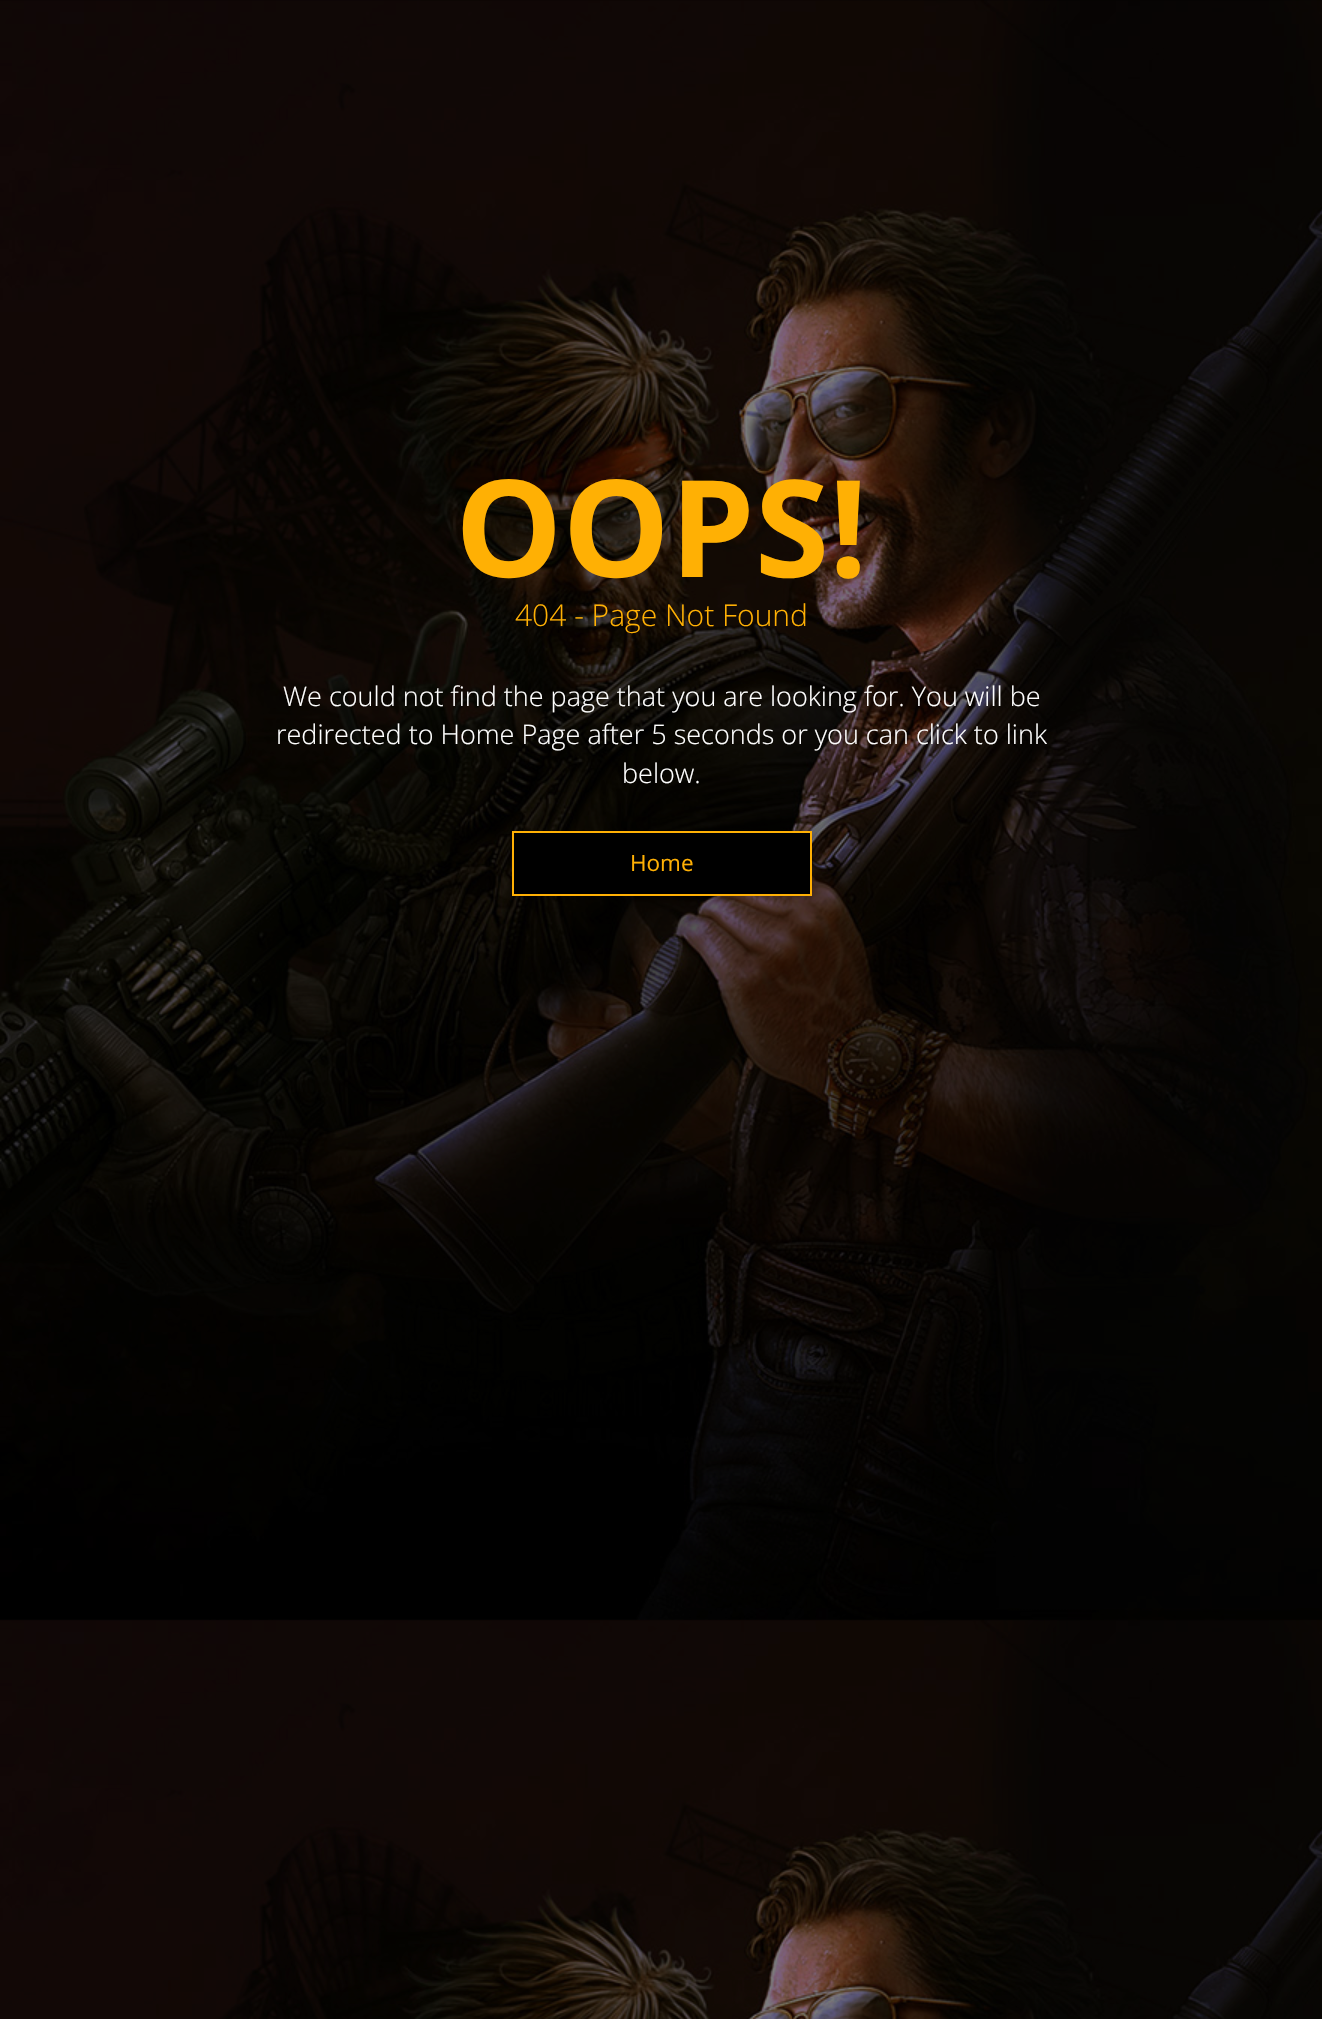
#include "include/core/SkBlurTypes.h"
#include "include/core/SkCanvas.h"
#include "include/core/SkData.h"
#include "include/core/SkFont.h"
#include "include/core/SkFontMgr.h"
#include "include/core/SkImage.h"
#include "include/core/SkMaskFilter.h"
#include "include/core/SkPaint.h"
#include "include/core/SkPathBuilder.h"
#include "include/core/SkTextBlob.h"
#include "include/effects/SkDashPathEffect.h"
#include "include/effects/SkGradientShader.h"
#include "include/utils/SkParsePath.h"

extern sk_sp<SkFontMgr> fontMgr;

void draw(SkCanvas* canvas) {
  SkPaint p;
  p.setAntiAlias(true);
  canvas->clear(SK_ColorWHITE);
  canvas->drawImageRect(SkImages::DeferredFromEncodedData(SkData::MakeFromFileName("images/1.png")), SkRect::MakeLTRB(0, 0, 1322, 2019), SkSamplingOptions());
  p.setColor(SK_ColorBLACK);
  canvas->drawRect(SkRect::MakeLTRB(513, 832, 811, 895), p);
  p.setStyle(SkPaint::kStroke_Style);
  p.setStrokeWidth(2);
  p.setColor(SkColorSetRGB(255, 176, 4));
  canvas->drawRect(SkRect::MakeLTRB(513, 832, 811, 895), p);
  SkFont font1(fontMgr->matchFamilyStyle("Open Sans", SkFontStyle::Bold()), 135);
  font1.setSubpixel(true);
  p.setStyle(SkPaint::kFill_Style);
  canvas->drawString("OOPS!", 455, 577, font1, p);
  SkFont font2(fontMgr->matchFamilyStyle("Open Sans", SkFontStyle(300, SkFontStyle::kNormal_Width, SkFontStyle::kUpright_Slant)), 30);
  font2.setSubpixel(true);
  canvas->drawString("404 - Page Not Found", 515, 626, font2, p);
  SkFont font3(fontMgr->matchFamilyStyle("Open Sans", SkFontStyle(300, SkFontStyle::kNormal_Width, SkFontStyle::kUpright_Slant)), 27);
  font3.setSubpixel(true);
  p.setColor(SK_ColorWHITE);
  canvas->drawString("We could not find the page that you are looking for. You will be", 283, 706, font3, p);
  canvas->drawString("redirected to Home Page after 5 seconds or you can click to link", 276, 744, font3, p);
  canvas->drawString("below.", 622, 783, font3, p);
  SkFont font4(fontMgr->matchFamilyStyle("Open Sans", SkFontStyle::Normal()), 22.5f);
  font4.setSubpixel(true);
  p.setColor(SkColorSetRGB(255, 176, 4));
  canvas->drawString("Home", 630, 871, font4, p);
}
